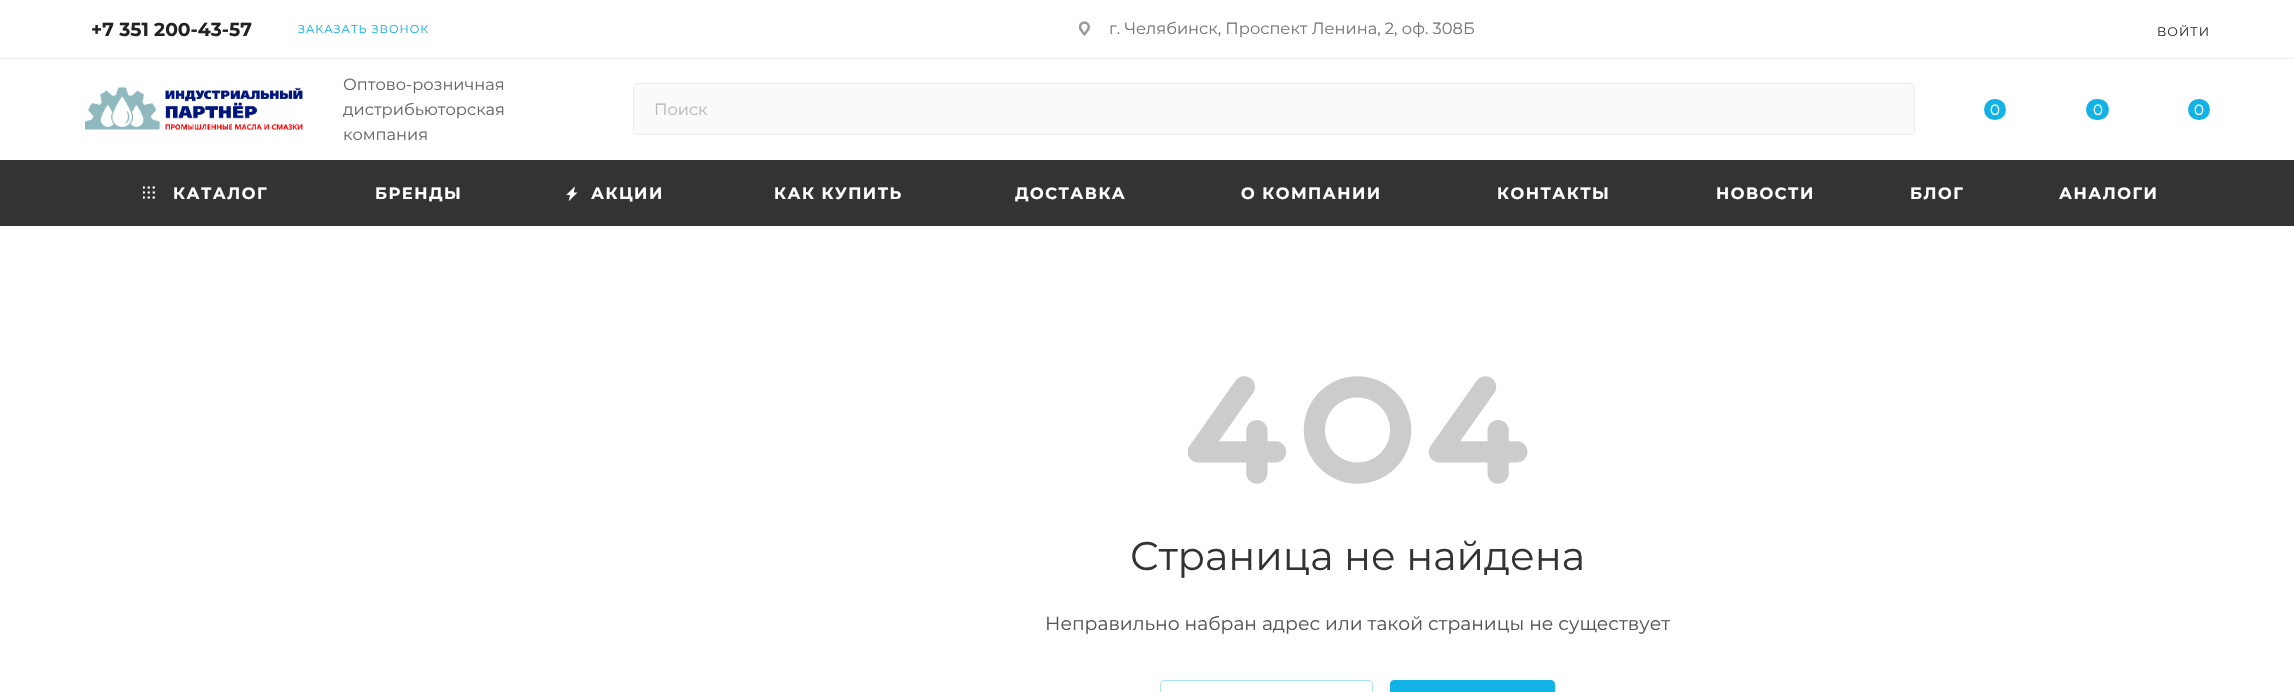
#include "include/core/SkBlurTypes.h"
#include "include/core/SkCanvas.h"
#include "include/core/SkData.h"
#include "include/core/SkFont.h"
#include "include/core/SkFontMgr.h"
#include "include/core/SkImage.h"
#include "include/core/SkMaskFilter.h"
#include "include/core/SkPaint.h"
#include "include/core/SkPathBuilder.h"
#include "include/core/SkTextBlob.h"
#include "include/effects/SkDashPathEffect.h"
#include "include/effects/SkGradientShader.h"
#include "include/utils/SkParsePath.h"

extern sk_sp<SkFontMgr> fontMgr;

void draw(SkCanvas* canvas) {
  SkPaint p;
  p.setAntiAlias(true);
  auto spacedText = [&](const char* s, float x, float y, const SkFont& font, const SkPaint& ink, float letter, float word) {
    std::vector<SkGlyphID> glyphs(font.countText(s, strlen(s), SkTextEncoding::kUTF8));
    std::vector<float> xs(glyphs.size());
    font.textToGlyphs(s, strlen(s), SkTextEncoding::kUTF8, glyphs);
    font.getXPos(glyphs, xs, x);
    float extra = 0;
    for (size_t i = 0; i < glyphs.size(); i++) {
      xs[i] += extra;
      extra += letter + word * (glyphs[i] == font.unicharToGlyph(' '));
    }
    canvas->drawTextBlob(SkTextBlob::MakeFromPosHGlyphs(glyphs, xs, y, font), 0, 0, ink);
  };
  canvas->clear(SK_ColorWHITE);
  p.setColor(SkColorSetRGB(236, 236, 236));
  canvas->drawRect(SkRect::MakeLTRB(0, 58, 2294, 59), p);
  canvas->drawImageRect(SkImages::DeferredFromEncodedData(SkData::MakeFromFileName("images/1.png")), SkRect::MakeLTRB(1079, 21, 1090, 36), SkSamplingOptions());
  canvas->drawImageRect(SkImages::DeferredFromEncodedData(SkData::MakeFromFileName("images/2.png")), SkRect::MakeLTRB(85, 87, 303, 130), SkSamplingOptions());
  p.setColor(SkColorSetRGB(250, 250, 250));
  canvas->drawRoundRect(SkRect::MakeLTRB(633.5f, 83.5f, 1914.5f, 134.5f), 3.5f, 3.5f, p);
  p.setStyle(SkPaint::kStroke_Style);
  p.setStrokeWidth(1);
  p.setColor(SkColorSetRGB(236, 236, 236));
  canvas->drawRoundRect(SkRect::MakeLTRB(633.5f, 83.5f, 1914.5f, 134.5f), 3.5f, 3.5f, p);
  p.setStyle(SkPaint::kFill_Style);
  p.setColor(SkColorSetRGB(18, 178, 231));
  canvas->drawRoundRect(SkRect::MakeLTRB(1984, 99, 2006, 120), 10.5f, 10.5f, p);
  canvas->drawRoundRect(SkRect::MakeLTRB(2086, 99, 2109, 120), 10.5f, 10.5f, p);
  canvas->drawRoundRect(SkRect::MakeLTRB(2188, 99, 2210, 120), 10.5f, 10.5f, p);
  p.setColor(SkColorSetRGB(51, 51, 51));
  canvas->drawRect(SkRect::MakeLTRB(0, 160, 2294, 226), p);
  canvas->drawImageRect(SkImages::DeferredFromEncodedData(SkData::MakeFromFileName("images/3.png")), SkRect::MakeLTRB(143, 186, 155, 199), SkSamplingOptions());
  canvas->drawImageRect(SkImages::DeferredFromEncodedData(SkData::MakeFromFileName("images/4.png")), SkRect::MakeLTRB(566, 186, 578, 201), SkSamplingOptions());
  canvas->drawImageRect(SkImages::DeferredFromEncodedData(SkData::MakeFromFileName("images/5.png")), SkRect::MakeLTRB(1188, 376, 1528, 484), SkSamplingOptions());
  p.setStyle(SkPaint::kStroke_Style);
  p.setColor(SkColorSetRGB(172, 228, 247));
  canvas->drawRoundRect(SkRect::MakeLTRB(1160.5f, 680.5f, 1372.5f, 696.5f), 3.5f, 3.5f, p);
  p.setStyle(SkPaint::kFill_Style);
  p.setColor(SkColorSetRGB(18, 178, 231));
  canvas->drawRoundRect(SkRect::MakeLTRB(1390.5f, 680.5f, 1554.5f, 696.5f), 3.5f, 3.5f, p);
  p.setStyle(SkPaint::kStroke_Style);
  canvas->drawRoundRect(SkRect::MakeLTRB(1390.5f, 680.5f, 1554.5f, 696.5f), 3.5f, 3.5f, p);
  SkFont font1(fontMgr->matchFamilyStyle("Montserrat", SkFontStyle::Bold()), 18.75f);
  font1.setSubpixel(true);
  p.setStyle(SkPaint::kFill_Style);
  p.setColor(SkColorSetRGB(34, 34, 34));
  canvas->drawString("+7 351 200-43-57", 91, 36, font1, p);
  SkFont font2(fontMgr->matchFamilyStyle("Montserrat", SkFontStyle::Normal()), 11.25f);
  font2.setSubpixel(true);
  p.setColor(SkColorSetRGB(18, 178, 231));
  spacedText("ЗАКАЗАТЬ ЗВОНОК", 298, 33, font2, p, 1, 0);
  SkFont font3(fontMgr->matchFamilyStyle("Montserrat", SkFontStyle::Normal()), 16.25f);
  font3.setSubpixel(true);
  p.setColor(SkColorSetRGB(119, 119, 119));
  canvas->drawString("г. Челябинск, Проспект Ленина, 2, оф. 308Б", 1109, 34, font3, p);
  SkFont font4(fontMgr->matchFamilyStyle("Montserrat", SkFontStyle::Normal()), 12.5f);
  font4.setSubpixel(true);
  p.setColor(SkColorSetRGB(51, 51, 51));
  spacedText("ВОЙТИ", 2157, 36, font4, p, 1, 0);
  p.setColor(SkColorSetRGB(102, 102, 102));
  canvas->drawString("Оптово-розничная", 343, 90, font3, p);
  canvas->drawString("дистрибьюторская", 343, 115, font3, p);
  canvas->drawString("компания", 343, 140, font3, p);
  p.setColor(SkColorSetRGB(184, 184, 184));
  canvas->drawString("Поиск", 654, 115, font3, p);
  SkFont font5(fontMgr->matchFamilyStyle("Montserrat", SkFontStyle::Normal()), 15);
  font5.setSubpixel(true);
  p.setColor(SK_ColorWHITE);
  canvas->drawString("0", 1990, 115, font5, p);
  canvas->drawString("0", 2093, 115, font5, p);
  canvas->drawString("0", 2194, 115, font5, p);
  SkFont font6(fontMgr->matchFamilyStyle("Montserrat", SkFontStyle::Bold()), 16.25f);
  font6.setSubpixel(true);
  spacedText("КАТАЛОГ", 173, 199, font6, p, 1.5f, 0);
  spacedText("БРЕНДЫ", 375, 199, font6, p, 1.5f, 0);
  spacedText("АКЦИИ", 591, 199, font6, p, 1.5f, 0);
  spacedText("КАК КУПИТЬ", 774, 199, font6, p, 1.5f, 0);
  spacedText("ДОСТАВКА", 1015, 199, font6, p, 1.5f, 0);
  spacedText("О КОМПАНИИ", 1241, 199, font6, p, 1.5f, 0);
  spacedText("КОНТАКТЫ", 1497, 199, font6, p, 1.5f, 0);
  spacedText("НОВОСТИ", 1716, 199, font6, p, 1.5f, 0);
  spacedText("БЛОГ", 1910, 199, font6, p, 1.5f, 0);
  spacedText("АНАЛОГИ", 2059, 199, font6, p, 1.5f, 0);
  SkFont font7(fontMgr->matchFamilyStyle("Montserrat", SkFontStyle::Normal()), 40);
  font7.setSubpixel(true);
  p.setColor(SkColorSetRGB(51, 51, 51));
  canvas->drawString("Страница не найдена", 1130, 570, font7, p);
  SkFont font8(fontMgr->matchFamilyStyle("Montserrat", SkFontStyle::Normal()), 18.75f);
  font8.setSubpixel(true);
  p.setColor(SkColorSetRGB(85, 85, 85));
  canvas->drawString("Неправильно набран адрес или такой страницы не существует", 1045, 630, font8, p);
}
